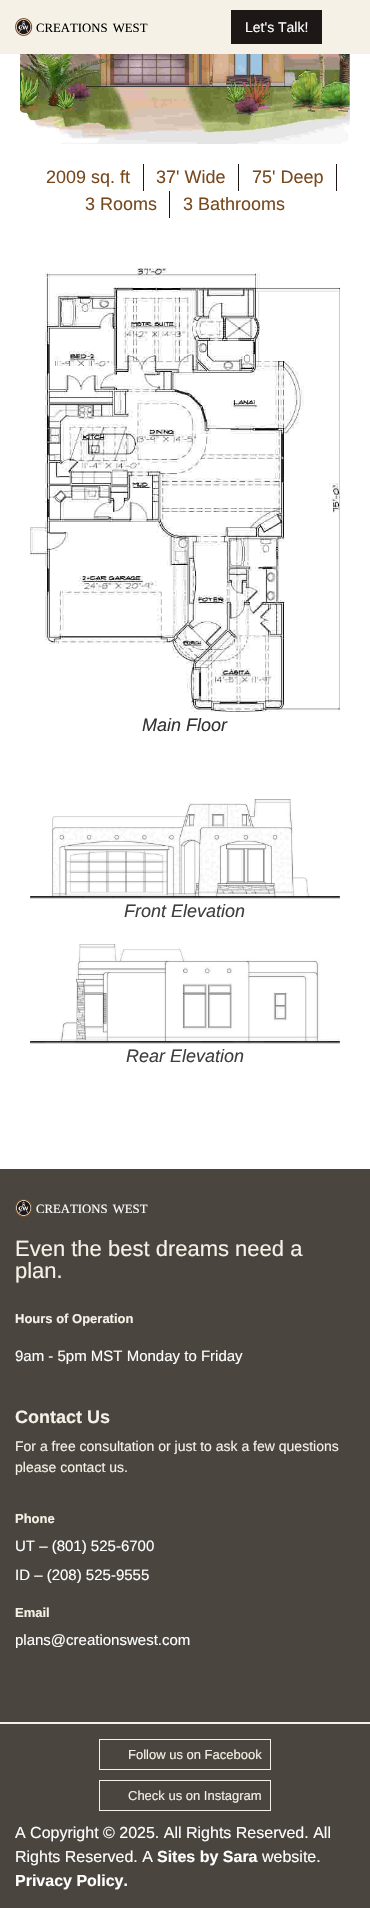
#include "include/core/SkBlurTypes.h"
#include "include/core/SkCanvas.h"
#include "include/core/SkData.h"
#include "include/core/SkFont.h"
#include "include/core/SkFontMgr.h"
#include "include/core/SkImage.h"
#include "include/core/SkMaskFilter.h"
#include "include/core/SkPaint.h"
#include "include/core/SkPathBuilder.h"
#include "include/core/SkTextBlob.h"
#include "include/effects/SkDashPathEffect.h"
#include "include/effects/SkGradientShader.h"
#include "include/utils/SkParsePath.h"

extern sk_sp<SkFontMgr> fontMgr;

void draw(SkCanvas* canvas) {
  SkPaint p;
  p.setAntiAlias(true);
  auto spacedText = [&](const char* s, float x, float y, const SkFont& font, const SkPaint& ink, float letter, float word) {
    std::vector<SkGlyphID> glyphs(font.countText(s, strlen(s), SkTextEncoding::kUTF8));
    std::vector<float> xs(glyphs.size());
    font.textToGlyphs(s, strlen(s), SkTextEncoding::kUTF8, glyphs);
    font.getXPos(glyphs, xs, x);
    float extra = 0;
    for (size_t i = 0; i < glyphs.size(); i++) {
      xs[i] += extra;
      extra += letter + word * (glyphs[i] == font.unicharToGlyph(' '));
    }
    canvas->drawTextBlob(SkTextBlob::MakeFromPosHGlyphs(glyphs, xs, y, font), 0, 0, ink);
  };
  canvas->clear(SK_ColorWHITE);
  p.setColor(SkColorSetRGB(245, 241, 230));
  canvas->drawRect(SkRect::MakeLTRB(0, 0, 370, 54), p);
  canvas->drawImageRect(SkImages::DeferredFromEncodedData(SkData::MakeFromFileName("images/1.png")), SkRect::MakeLTRB(15, 18, 33, 36), SkSamplingOptions());
  p.setColor(SkColorSetRGB(29, 23, 21));
  canvas->drawRect(SkRect::MakeLTRB(231, 10, 322, 44), p);
  canvas->drawImageRect(SkImages::DeferredFromEncodedData(SkData::MakeFromFileName("images/2.png")), SkRect::MakeLTRB(20, 54, 350, 144), SkSamplingOptions());
  canvas->drawRect(SkRect::MakeLTRB(143, 164, 144, 191), p);
  canvas->drawRect(SkRect::MakeLTRB(238, 164, 239, 191), p);
  canvas->drawRect(SkRect::MakeLTRB(336, 164, 337, 191), p);
  canvas->drawRect(SkRect::MakeLTRB(169, 191, 170, 218), p);
  canvas->drawImageRect(SkImages::DeferredFromEncodedData(SkData::MakeFromFileName("images/3.png")), SkRect::MakeLTRB(30, 268, 340, 712), SkSamplingOptions());
  canvas->drawImageRect(SkImages::DeferredFromEncodedData(SkData::MakeFromFileName("images/4.png")), SkRect::MakeLTRB(30, 799, 340, 899), SkSamplingOptions());
  canvas->drawImageRect(SkImages::DeferredFromEncodedData(SkData::MakeFromFileName("images/5.png")), SkRect::MakeLTRB(30, 944, 340, 1044), SkSamplingOptions());
  p.setColor(SkColorSetRGB(74, 70, 63));
  canvas->drawRect(SkRect::MakeLTRB(0, 1169, 370, 1722), p);
  canvas->drawImageRect(SkImages::DeferredFromEncodedData(SkData::MakeFromFileName("images/6.png")), SkRect::MakeLTRB(15, 1199, 33, 1217), SkSamplingOptions());
  canvas->drawRect(SkRect::MakeLTRB(0, 1724, 370, 1908), p);
  p.setColor(SkColorSetRGB(245, 241, 230));
  canvas->drawRect(SkRect::MakeLTRB(0, 1722, 370, 1724), p);
  p.setStyle(SkPaint::kStroke_Style);
  p.setStrokeWidth(1);
  canvas->drawRect(SkRect::MakeLTRB(99.5f, 1739.5f, 270.5f, 1769.5f), p);
  canvas->drawRect(SkRect::MakeLTRB(99.5f, 1780.5f, 270.5f, 1810.5f), p);
  SkFont font1(fontMgr->matchFamilyStyle("Liberation Serif", SkFontStyle::Normal()), 12.75f);
  font1.setSubpixel(true);
  p.setStyle(SkPaint::kFill_Style);
  p.setColor(SK_ColorBLACK);
  spacedText("CREATIONS WEST", 36, 32, font1, p, 0, 2);
  SkFont font2(fontMgr->matchFamilyStyle("Liberation Sans", SkFontStyle::Normal()), 14);
  font2.setSubpixel(true);
  p.setColor(SK_ColorWHITE);
  canvas->drawString("Let's Talk!", 245, 32, font2, p);
  SkFont font3(fontMgr->matchFamilyStyle("Liberation Sans", SkFontStyle::Normal()), 18);
  font3.setSubpixel(true);
  p.setColor(SkColorSetRGB(121, 73, 30));
  canvas->drawString("2009 sq. ft", 46, 183, font3, p);
  canvas->drawString("37' Wide", 156, 183, font3, p);
  canvas->drawString("75' Deep", 252, 183, font3, p);
  canvas->drawString("3 Rooms", 85, 210, font3, p);
  canvas->drawString("3 Bathrooms", 183, 210, font3, p);
  SkFont font4(fontMgr->matchFamilyStyle("Liberation Sans", SkFontStyle::Italic()), 18);
  font4.setSubpixel(true);
  p.setColor(SkColorSetRGB(51, 51, 51));
  canvas->drawString("Main Floor", 142, 731, font4, p);
  p.setColor(SkColorSetRGB(63, 63, 63));
  canvas->drawString("Front Elevation", 124, 917, font4, p);
  canvas->drawString("Rear Elevation", 126, 1062, font4, p);
  p.setColor(SK_ColorWHITE);
  spacedText("CREATIONS WEST", 36, 1213, font1, p, 0, 2);
  SkFont font5(fontMgr->matchFamilyStyle("Liberation Sans", SkFontStyle::Normal()), 22);
  font5.setSubpixel(true);
  p.setColor(SkColorSetRGB(245, 241, 230));
  canvas->drawString("Even the best dreams need a", 15, 1256, font5, p);
  canvas->drawString("plan.", 15, 1278, font5, p);
  SkFont font6(fontMgr->matchFamilyStyle("Liberation Sans", SkFontStyle::Bold()), 13);
  font6.setSubpixel(true);
  canvas->drawString("Hours of Operation", 15, 1323, font6, p);
  SkFont font7(fontMgr->matchFamilyStyle("Liberation Sans", SkFontStyle::Normal()), 15);
  font7.setSubpixel(true);
  p.setColor(SK_ColorWHITE);
  canvas->drawString("9am - 5pm MST Monday to Friday", 15, 1361, font7, p);
  SkFont font8(fontMgr->matchFamilyStyle("Liberation Sans", SkFontStyle::Bold()), 18);
  font8.setSubpixel(true);
  p.setColor(SkColorSetRGB(245, 241, 230));
  canvas->drawString("Contact Us", 15, 1423, font8, p);
  canvas->drawString("For a free consultation or just to ask a few questions", 15, 1451, font2, p);
  canvas->drawString("please contact us.", 15, 1472, font2, p);
  canvas->drawString("Phone", 15, 1523, font6, p);
  p.setColor(SK_ColorWHITE);
  canvas->drawString("UT – (801) 525-6700", 15, 1551, font7, p);
  canvas->drawString("ID – (208) 525-9555", 15, 1580, font7, p);
  p.setColor(SkColorSetRGB(245, 241, 230));
  canvas->drawString("Email", 15, 1617, font6, p);
  p.setColor(SK_ColorWHITE);
  canvas->drawString("plans@creationswest.com", 15, 1645, font7, p);
  SkFont font9(fontMgr->matchFamilyStyle("Liberation Sans", SkFontStyle::Normal()), 13);
  font9.setSubpixel(true);
  p.setColor(SkColorSetRGB(245, 241, 230));
  canvas->drawString("Follow us on Facebook", 128, 1759, font9, p);
  canvas->drawString("Check us on Instagram", 128, 1800, font9, p);
  SkFont font10(fontMgr->matchFamilyStyle("Liberation Sans", SkFontStyle::Normal()), 16);
  font10.setSubpixel(true);
  p.setColor(SK_ColorWHITE);
  canvas->drawString("A Copyright © 2025. All Rights Reserved. All", 15, 1838, font10, p);
  canvas->drawString("Rights Reserved. A", 15, 1862, font10, p);
  SkFont font11(fontMgr->matchFamilyStyle("Liberation Sans", SkFontStyle::Bold()), 16);
  font11.setSubpixel(true);
  canvas->drawString("Sites by Sara", 157, 1862, font11, p);
  canvas->drawString("website.", 262, 1862, font10, p);
  canvas->drawString("Privacy Policy.", 15, 1886, font11, p);
}
